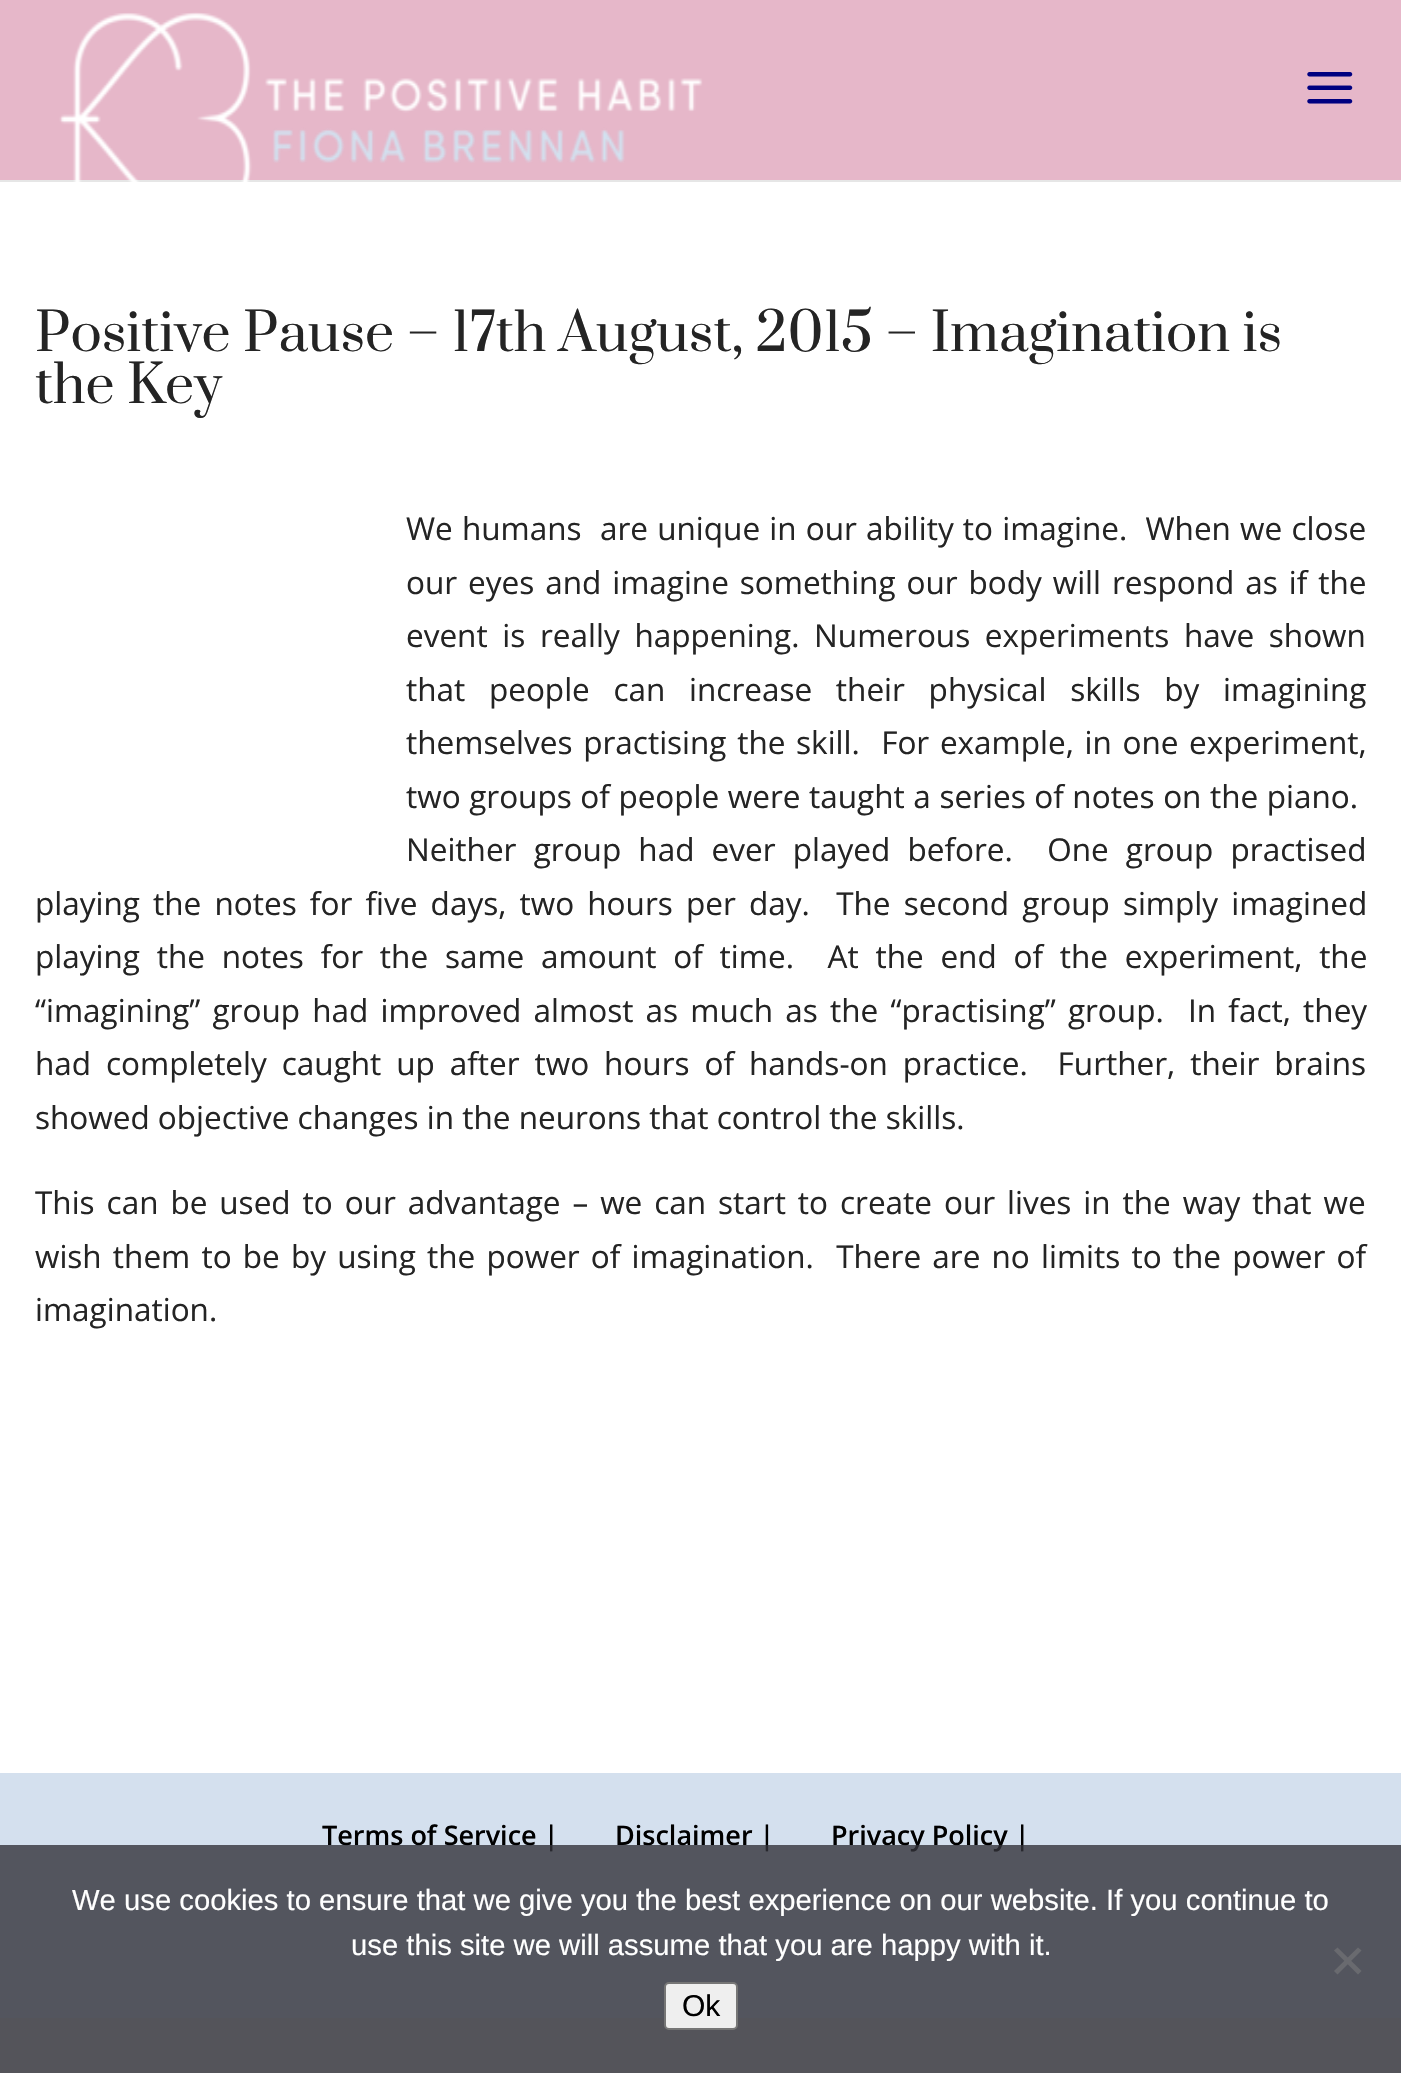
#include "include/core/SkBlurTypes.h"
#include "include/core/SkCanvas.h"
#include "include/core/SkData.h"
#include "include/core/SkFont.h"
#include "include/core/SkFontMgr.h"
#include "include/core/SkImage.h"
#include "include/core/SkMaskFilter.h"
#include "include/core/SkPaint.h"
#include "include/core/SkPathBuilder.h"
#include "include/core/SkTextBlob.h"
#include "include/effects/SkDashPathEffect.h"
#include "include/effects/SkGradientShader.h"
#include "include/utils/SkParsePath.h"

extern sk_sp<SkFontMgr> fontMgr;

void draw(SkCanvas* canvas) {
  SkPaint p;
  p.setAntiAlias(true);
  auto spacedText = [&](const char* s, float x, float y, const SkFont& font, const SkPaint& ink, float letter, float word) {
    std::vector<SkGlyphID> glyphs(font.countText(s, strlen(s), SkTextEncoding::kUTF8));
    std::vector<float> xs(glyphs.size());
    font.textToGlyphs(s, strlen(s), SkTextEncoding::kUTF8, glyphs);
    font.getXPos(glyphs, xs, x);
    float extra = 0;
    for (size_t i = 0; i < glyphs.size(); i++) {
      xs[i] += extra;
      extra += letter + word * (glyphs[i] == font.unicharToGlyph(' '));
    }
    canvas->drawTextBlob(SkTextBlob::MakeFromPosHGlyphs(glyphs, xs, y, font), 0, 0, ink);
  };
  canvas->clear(SkColorSetRGB(216, 216, 216));
  p.setColor(SkColorSetRGB(230, 230, 230));
  canvas->drawPath(SkPathBuilder().moveTo(0, 180).lineTo(0, 182).lineTo(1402, 182).lineTo(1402, 2).lineTo(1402, 180).close().detach(), p);
  p.setColor(SkColorSetRGB(230, 183, 201));
  canvas->drawRect(SkRect::MakeLTRB(0, 0, 1401, 180), p);
  canvas->drawImageRect(SkImages::DeferredFromEncodedData(SkData::MakeFromFileName("images/1.png")), SkRect::MakeLTRB(59, 12, 703, 182), SkSamplingOptions());
  canvas->drawImageRect(SkImages::DeferredFromEncodedData(SkData::MakeFromFileName("images/2.png")), SkRect::MakeLTRB(1307, 72, 1353, 104), SkSamplingOptions());
  p.setColor(SK_ColorWHITE);
  canvas->drawRect(SkRect::MakeLTRB(0, 182, 1401, 1773), p);
  p.setColor(SkColorSetRGB(212, 224, 238));
  canvas->drawRect(SkRect::MakeLTRB(0, 1773, 1401, 2018), p);
  SkFont font1(fontMgr->matchFamilyStyle("Prata", SkFontStyle::Normal()), 51.75f);
  font1.setSubpixel(true);
  p.setColor(SkColorSetRGB(36, 36, 36));
  canvas->drawString("Positive Pause – 17th August, 2015 – Imagination is", 35, 351, font1, p);
  canvas->drawString("the Key", 35, 403, font1, p);
  SkFont font2(fontMgr->matchFamilyStyle("Open Sans", SkFontStyle::Normal()), 31.5f);
  font2.setSubpixel(true);
  spacedText("We humans  are unique in our ability to imagine.  When we close", 406, 540, font2, p, 0, 1);
  spacedText("our eyes and imagine something our body will respond as if the", 406, 594, font2, p, 0, 2.75f);
  spacedText("event is really happening. Numerous experiments have shown", 406, 647, font2, p, 0, 6.5f);
  spacedText("that people can increase their physical skills by imagining", 406, 701, font2, p, 0, 15.5f);
  spacedText("themselves practising the skill.  For example, in one experiment,", 406, 754, font2, p, 0, 2.5f);
  spacedText("two groups of people were taught a series of notes on the piano.", 406, 808, font2, p, 0, 0.4f);
  spacedText("Neither group had ever played before.  One group practised", 406, 861, font2, p, 0, 9);
  spacedText("playing the notes for five days, two hours per day.  The second group simply imagined", 35, 915, font2, p, 0, 5);
  spacedText("playing the notes for the same amount of time.  At the end of the experiment, the", 35, 968, font2, p, 0, 8.6f);
  spacedText("“imagining” group had improved almost as much as the “practising” group.  In fact, they", 35, 1022, font2, p, 0, 4);
  spacedText("had completely caught up after two hours of hands-on practice.  Further, their brains", 35, 1075, font2, p, 0, 6.75f);
  canvas->drawString("showed objective changes in the neurons that control the skills.", 35, 1129, font2, p);
  spacedText("This can be used to our advantage – we can start to create our lives in the way that we", 35, 1214, font2, p, 0, 3.75f);
  spacedText("wish them to be by using the power of imagination.  There are no limits to the power of", 35, 1268, font2, p, 0, 3);
  canvas->drawString("imagination.", 35, 1321, font2, p);
  SkFont font3(fontMgr->matchFamilyStyle("Open Sans", SkFontStyle(600, SkFontStyle::kNormal_Width, SkFontStyle::kUpright_Slant)), 27);
  font3.setSubpixel(true);
  p.setColor(SK_ColorBLACK);
  canvas->drawString("Terms of Service |", 322, 1845, font3, p);
  canvas->drawString("Disclaimer |", 615, 1845, font3, p);
  canvas->drawString("Privacy Policy |", 831, 1845, font3, p);
  p.setColor(SkColorSetARGB(204, 50, 50, 58));
  canvas->drawRect(SkRect::MakeLTRB(0, 1845, 1401, 2073), p);
  SkFont font4(fontMgr->matchFamilyStyle("Liberation Sans", SkFontStyle::Normal()), 29.25f);
  font4.setSubpixel(true);
  p.setColor(SK_ColorWHITE);
  canvas->drawString("We use cookies to ensure that we give you the best experience on our website. If you continue to", 72, 1910, font4, p);
  canvas->drawString("use this site we will assume that you are happy with it.", 351, 1955, font4, p);
  p.setColor(SkColorSetRGB(105, 106, 111));
  canvas->drawPath(SkPathBuilder().moveTo(1358, 1947.5f).lineTo(1361.5f, 1950.5f).lineTo(1337.5f, 1974.5f).lineTo(1334, 1971).close().detach(), p);
  canvas->drawPath(SkPathBuilder().moveTo(1334, 1950.5f).lineTo(1337.5f, 1947.5f).lineTo(1361.5f, 1971).lineTo(1358, 1974.5f).close().detach(), p);
  p.setColor(SkColorSetRGB(239, 239, 239));
  canvas->drawRoundRect(SkRect::MakeLTRB(665, 1983, 737, 2029), 4, 4, p);
  p.setStyle(SkPaint::kStroke_Style);
  p.setStrokeWidth(2);
  p.setColor(SkColorSetRGB(118, 118, 118));
  canvas->drawRoundRect(SkRect::MakeLTRB(665, 1983, 737, 2029), 4, 4, p);
  SkFont font5(fontMgr->matchFamilyStyle("Liberation Sans", SkFontStyle::Normal()), 30);
  font5.setSubpixel(true);
  p.setStyle(SkPaint::kFill_Style);
  p.setColor(SK_ColorBLACK);
  canvas->drawString("Ok", 682, 2016, font5, p);
}
